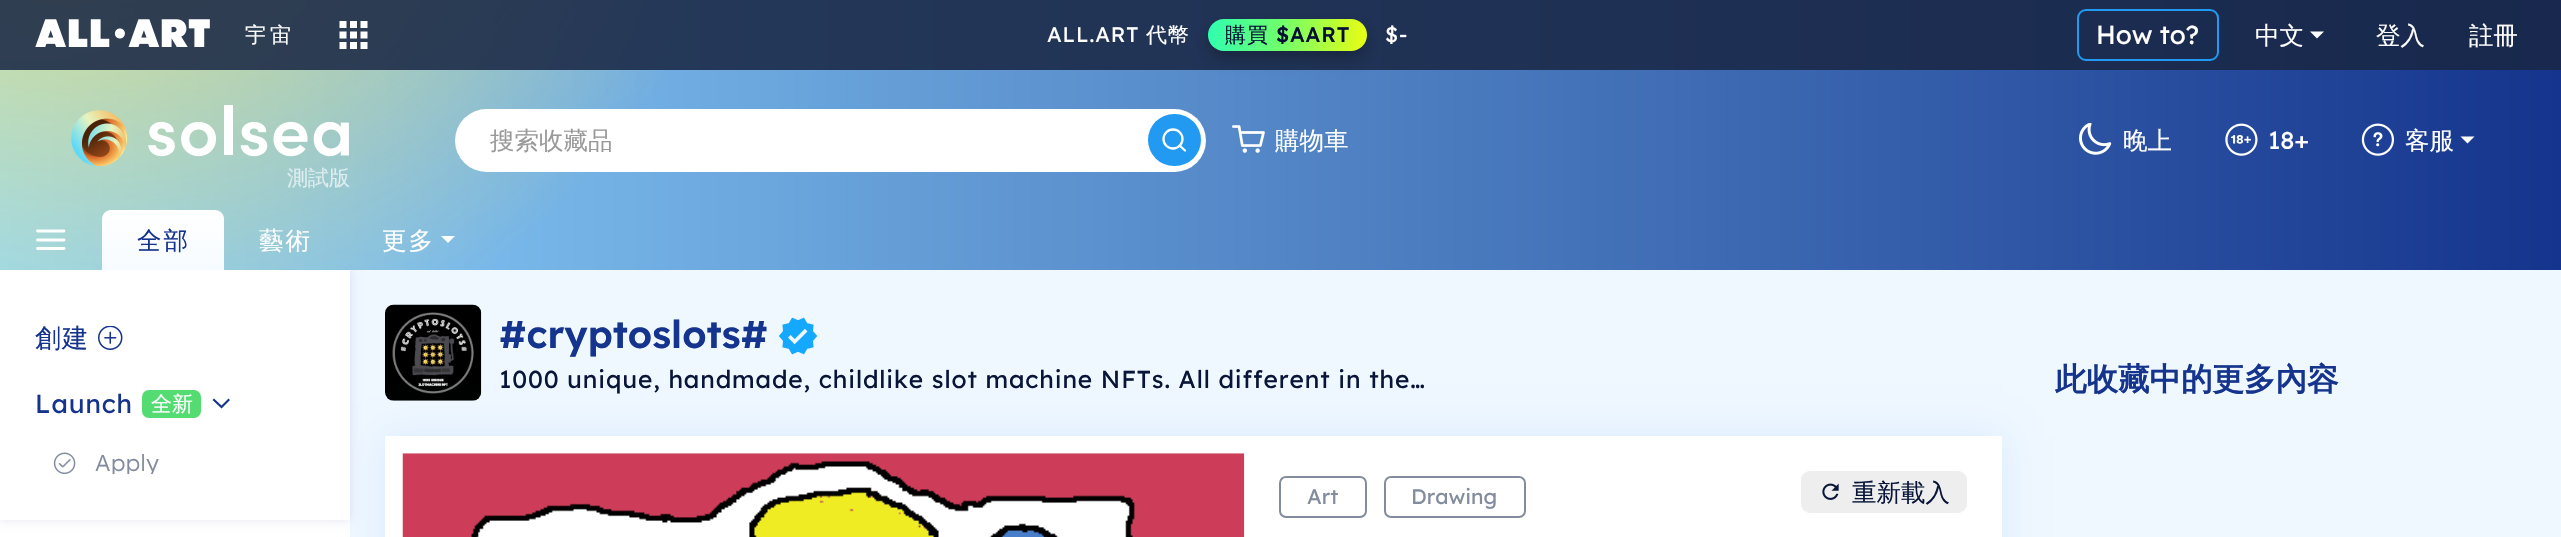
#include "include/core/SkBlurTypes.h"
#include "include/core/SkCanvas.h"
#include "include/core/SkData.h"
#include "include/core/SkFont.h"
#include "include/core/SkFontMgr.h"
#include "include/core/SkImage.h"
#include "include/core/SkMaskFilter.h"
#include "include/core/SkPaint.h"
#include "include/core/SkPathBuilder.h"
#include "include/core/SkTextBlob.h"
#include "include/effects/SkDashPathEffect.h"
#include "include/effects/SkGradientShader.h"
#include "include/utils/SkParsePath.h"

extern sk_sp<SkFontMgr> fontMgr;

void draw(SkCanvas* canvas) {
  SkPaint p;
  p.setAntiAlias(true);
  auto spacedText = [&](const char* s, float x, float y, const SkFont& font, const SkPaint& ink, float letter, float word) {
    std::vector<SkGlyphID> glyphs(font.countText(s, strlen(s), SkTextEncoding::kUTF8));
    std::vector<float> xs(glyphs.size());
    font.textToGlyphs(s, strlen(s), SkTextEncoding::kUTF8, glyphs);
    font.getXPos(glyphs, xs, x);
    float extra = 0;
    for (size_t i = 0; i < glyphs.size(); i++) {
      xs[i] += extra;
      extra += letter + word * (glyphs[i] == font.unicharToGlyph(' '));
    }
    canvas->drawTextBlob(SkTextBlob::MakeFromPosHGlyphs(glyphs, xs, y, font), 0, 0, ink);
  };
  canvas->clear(SK_ColorWHITE);
  p.setColor(SkColorSetRGB(239, 247, 255));
  canvas->drawRect(SkRect::MakeLTRB(350, 270, 2561, 537), p);
  p.setColor(SkColorSetARGB(26, 0, 0, 128));
  p.setMaskFilter(SkMaskFilter::MakeBlur(kNormal_SkBlurStyle, 4.5f));
  canvas->drawRect(SkRect::MakeLTRB(0, 270, 350, 520), p);
  p.setMaskFilter(nullptr);
  {
    const SkColor colors[] = {SkColorSetRGB(21, 52, 141), SkColorSetRGB(144, 215, 255)};
    const float stops[] = {0, 1};
    const SkPoint ends[] = {{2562, 135}, {0, 135}};
    p.setShader(SkGradientShader::MakeLinear(ends, colors, stops, 2, SkTileMode::kClamp));
    p.setAlpha(255);
  }
  canvas->drawRect(SkRect::MakeLTRB(0, 0, 2561, 270), p);
  {
    const SkColor colors[] = {SkColorSetRGB(255, 227, 82), SkColorSetARGB(0, 255, 227, 82)};
    const float stops[] = {0, 1};
    SkMatrix m = SkMatrix::Translate(77, -350).preScale(717, 755);
    p.setShader(SkGradientShader::MakeRadial({0, 0}, 1, colors, stops, 2, SkTileMode::kClamp, 0, &m));
    p.setAlpha(255);
  }
  canvas->drawRect(SkRect::MakeLTRB(0, 0, 692, 270), p);
  p.setShader(nullptr);
  p.setColor(SkColorSetARGB(222, 24, 38, 68));
  canvas->drawRect(SkRect::MakeLTRB(0, 0, 2561, 70), p);
  canvas->drawImageRect(SkImages::DeferredFromEncodedData(SkData::MakeFromFileName("images/1.png")), SkRect::MakeLTRB(35, 19, 210, 47), SkSamplingOptions());
  canvas->drawImageRect(SkImages::DeferredFromEncodedData(SkData::MakeFromFileName("images/2.png")), SkRect::MakeLTRB(339, 21, 368, 49), SkSamplingOptions());
  p.setColor(SkColorSetARGB(64, 0, 0, 0));
  p.setMaskFilter(SkMaskFilter::MakeBlur(kNormal_SkBlurStyle, 7));
  canvas->drawRoundRect(SkRect::MakeLTRB(1208, 26, 1367, 58), 16, 16, p);
  p.setMaskFilter(nullptr);
  {
    const SkColor colors[] = {SkColorSetRGB(47, 255, 177), SkColorSetRGB(113, 255, 106), SkColorSetRGB(226, 253, 23)};
    const float stops[] = {0, 0.47f, 0.97f};
    const SkPoint ends[] = {{1207, 30}, {1367, 39}};
    p.setShader(SkGradientShader::MakeLinear(ends, colors, stops, 3, SkTileMode::kClamp));
    p.setAlpha(255);
  }
  canvas->drawRoundRect(SkRect::MakeLTRB(1208, 19, 1367, 51), 16, 16, p);
  p.setStyle(SkPaint::kStroke_Style);
  p.setStrokeWidth(2);
  p.setShader(nullptr);
  p.setColor(SkColorSetRGB(34, 154, 241));
  canvas->drawRoundRect(SkRect::MakeLTRB(2078, 10, 2218, 60), 8, 8, p);
  p.setStyle(SkPaint::kFill_Style);
  p.setColor(SK_ColorWHITE);
  canvas->drawPath(SkPathBuilder().moveTo(2310, 31.5f).lineTo(2324, 31.5f).lineTo(2317, 38.5f).close().detach(), p);
  canvas->drawRoundRect(SkRect::MakeLTRB(455, 109, 1206, 172), 31.5f, 31.5f, p);
  p.setColor(SkColorSetRGB(34, 154, 241));
  canvas->drawRoundRect(SkRect::MakeLTRB(1148, 114, 1201, 166), 26, 26, p);
  p.setStyle(SkPaint::kStroke_Style);
  p.setStrokeWidth(2.3f);
  p.setColor(SK_ColorWHITE);
  canvas->drawCircle(1173, 139, 9.5f, p);
  p.setStrokeCap(SkPaint::kRound_Cap);
  p.setStrokeJoin(SkPaint::kRound_Join);
  canvas->drawPath(SkPathBuilder().moveTo(1185, 150.5f).lineTo(1179.5f, 145.5f).detach(), p);
  canvas->drawImageRect(SkImages::DeferredFromEncodedData(SkData::MakeFromFileName("images/3.png")), SkRect::MakeLTRB(71, 105, 349, 166), SkSamplingOptions());
  canvas->drawImageRect(SkImages::DeferredFromEncodedData(SkData::MakeFromFileName("images/4.png")), SkRect::MakeLTRB(1232, 125, 1265, 153), SkSamplingOptions());
  canvas->drawImageRect(SkImages::DeferredFromEncodedData(SkData::MakeFromFileName("images/5.png")), SkRect::MakeLTRB(2079, 123, 2112, 155), SkSamplingOptions());
  canvas->drawImageRect(SkImages::DeferredFromEncodedData(SkData::MakeFromFileName("images/6.png")), SkRect::MakeLTRB(2225, 123, 2258, 156), SkSamplingOptions());
  canvas->drawImageRect(SkImages::DeferredFromEncodedData(SkData::MakeFromFileName("images/7.png")), SkRect::MakeLTRB(2361, 123, 2394, 156), SkSamplingOptions());
  p.setStyle(SkPaint::kFill_Style);
  canvas->drawPath(SkPathBuilder().moveTo(2460.5f, 136.5f).lineTo(2474.5f, 136.5f).lineTo(2467.5f, 143.5f).close().detach(), p);
  p.setStyle(SkPaint::kStroke_Style);
  p.setStrokeWidth(2.9f);
  canvas->drawPath(SkPathBuilder().moveTo(37.5f, 240).lineTo(64, 240).moveTo(37.5f, 231).lineTo(64, 231).moveTo(37.5f, 248.5f).lineTo(64, 248.5f).detach(), p);
  p.setStyle(SkPaint::kFill_Style);
  {
    const SkColor colors[] = {SkColorSetRGB(246, 251, 255), SK_ColorWHITE};
    const float stops[] = {0, 1};
    const SkPoint ends[] = {{163, 270}, {163, 210}};
    p.setShader(SkGradientShader::MakeLinear(ends, colors, stops, 2, SkTileMode::kClamp));
    p.setAlpha(255);
  }
  canvas->drawPath(SkPathBuilder().moveTo(111, 210).lineTo(215, 210).cubicTo(220, 210, 224, 214, 224, 219).lineTo(224, 270).lineTo(102, 270).lineTo(102, 219).cubicTo(102, 214, 106, 210, 111, 210).close().detach(), p);
  p.setShader(nullptr);
  p.setColor(SK_ColorWHITE);
  canvas->drawPath(SkPathBuilder().moveTo(441, 236).lineTo(455, 236).lineTo(448, 243).close().detach(), p);
  canvas->drawImageRect(SkImages::DeferredFromEncodedData(SkData::MakeFromFileName("images/10.png")), SkRect::MakeLTRB(385, 304, 482, 401), SkSamplingOptions());
  p.setColor(SkColorSetARGB(23, 0, 112, 255));
  p.setMaskFilter(SkMaskFilter::MakeBlur(kNormal_SkBlurStyle, 17.5f));
  canvas->drawRect(SkRect::MakeLTRB(385, 436, 2002, 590), p);
  p.setMaskFilter(nullptr);
  p.setColor(SK_ColorWHITE);
  canvas->drawRect(SkRect::MakeLTRB(0, 270, 350, 520), p);
  canvas->drawImageRect(SkImages::DeferredFromEncodedData(SkData::MakeFromFileName("images/8.png")), SkRect::MakeLTRB(98, 326, 123, 350), SkSamplingOptions());
  p.setColor(SkColorSetRGB(84, 219, 114));
  canvas->drawRoundRect(SkRect::MakeLTRB(142, 390, 201, 418), 7, 7, p);
  p.setColor(SkColorSetRGB(21, 52, 141));
  canvas->drawPath(SkPathBuilder().moveTo(214, 398.5f).lineTo(212.5f, 400).lineTo(221.5f, 408.5f).lineTo(230, 400).lineTo(228.5f, 398.5f).lineTo(221.5f, 405.5f).close().detach(), p);
  canvas->drawImageRect(SkImages::DeferredFromEncodedData(SkData::MakeFromFileName("images/9.png")), SkRect::MakeLTRB(53, 452, 76, 474), SkSamplingOptions());
  canvas->drawImageRect(SkImages::DeferredFromEncodedData(SkData::MakeFromFileName("images/11.png")), SkRect::MakeLTRB(778, 317, 818, 355), SkSamplingOptions());
  p.setColor(SK_ColorWHITE);
  canvas->drawRect(SkRect::MakeLTRB(385, 436, 2002, 537), p);
  canvas->drawImageRect(SkImages::DeferredFromEncodedData(SkData::MakeFromFileName("images/12.png")), SkRect::MakeLTRB(402, 453, 1245, 537), SkSamplingOptions());
  p.setStyle(SkPaint::kStroke_Style);
  p.setStrokeWidth(2);
  p.setStrokeCap(SkPaint::kButt_Cap);
  p.setStrokeJoin(SkPaint::kMiter_Join);
  p.setColor(SkColorSetRGB(131, 140, 159));
  canvas->drawRoundRect(SkRect::MakeLTRB(1280, 477, 1366, 517), 6, 6, p);
  canvas->drawRoundRect(SkRect::MakeLTRB(1385, 477, 1525, 517), 6, 6, p);
  p.setStyle(SkPaint::kFill_Style);
  p.setColor(SkColorSetRGB(238, 238, 238));
  canvas->drawRoundRect(SkRect::MakeLTRB(1801, 471, 1967, 513), 9, 9, p);
  canvas->drawImageRect(SkImages::DeferredFromEncodedData(SkData::MakeFromFileName("images/13.png")), SkRect::MakeLTRB(1822, 483, 1839, 500), SkSamplingOptions());
  SkFont font1(fontMgr->matchFamilyStyle("WenQuanYi Zen Hei", SkFontStyle(500, SkFontStyle::kNormal_Width, SkFontStyle::kUpright_Slant)), 21);
  font1.setSubpixel(true);
  p.setColor(SK_ColorWHITE);
  spacedText("宇宙", 245, 42, font1, p, 4, 0);
  SkFont font2(fontMgr->matchFamilyStyle("Lexend", SkFontStyle::Normal()), 21);
  font2.setSubpixel(true);
  spacedText("ALL.ART", 1047, 42, font2, p, 0.88f, 0);
  spacedText("代幣", 1146, 42, font1, p, 0.88f, 0);
  p.setColor(SkColorSetRGB(2, 15, 51));
  spacedText("購買", 1225, 42, font1, p, 0.88f, 0);
  SkFont font3(fontMgr->matchFamilyStyle("Lexend", SkFontStyle(500, SkFontStyle::kNormal_Width, SkFontStyle::kUpright_Slant)), 21);
  font3.setSubpixel(true);
  spacedText("$AART", 1276, 42, font3, p, 0.88f, 0);
  p.setColor(SK_ColorWHITE);
  spacedText("$-", 1385, 42, font2, p, 0.88f, 0);
  SkFont font4(fontMgr->matchFamilyStyle("Lexend", SkFontStyle::Normal()), 26);
  font4.setSubpixel(true);
  canvas->drawString("How to?", 2096, 44, font4, p);
  SkFont font5(fontMgr->matchFamilyStyle("WenQuanYi Zen Hei", SkFontStyle(500, SkFontStyle::kNormal_Width, SkFontStyle::kUpright_Slant)), 24.5f);
  font5.setSubpixel(true);
  canvas->drawString("中文", 2255, 44, font5, p);
  canvas->drawString("登入", 2376, 44, font5, p);
  canvas->drawString("註冊", 2469, 44, font5, p);
  p.setColor(SkColorSetRGB(153, 153, 153));
  canvas->drawString("搜索收藏品", 490, 149, font5, p);
  p.setColor(SkColorSetRGB(222, 237, 239));
  canvas->drawString("測試版", 287, 185, font1, p);
  p.setColor(SK_ColorWHITE);
  canvas->drawString("購物車", 1275, 149, font5, p);
  canvas->drawString("晚上", 2123, 149, font5, p);
  SkFont font6(fontMgr->matchFamilyStyle("Lexend", SkFontStyle::Normal()), 24.5f);
  font6.setSubpixel(true);
  canvas->drawString("18+", 2268, 149, font6, p);
  canvas->drawString("客服", 2405, 149, font5, p);
  p.setColor(SkColorSetRGB(21, 52, 141));
  spacedText("全部", 137, 249, font5, p, 2, 0);
  p.setColor(SK_ColorWHITE);
  spacedText("藝術", 259, 249, font5, p, 2, 0);
  spacedText("更多", 382, 249, font5, p, 2, 0);
  SkFont font7(fontMgr->matchFamilyStyle("WenQuanYi Zen Hei", SkFontStyle(500, SkFontStyle::kNormal_Width, SkFontStyle::kUpright_Slant)), 26);
  font7.setSubpixel(true);
  p.setColor(SkColorSetRGB(21, 52, 141));
  spacedText("創建", 35, 347, font7, p, 0.88f, 0);
  spacedText("Launch", 35, 413, font4, p, 0.88f, 0);
  p.setColor(SK_ColorWHITE);
  canvas->drawString("全新", 151, 411, font1, p);
  canvas->save();
  canvas->clipRect(SkRect::MakeLTRB(95, 452, 350, 474));
  SkFont font8(fontMgr->matchFamilyStyle("Lexend", SkFontStyle(300, SkFontStyle::kNormal_Width, SkFontStyle::kUpright_Slant)), 23);
  font8.setSubpixel(true);
  p.setColor(SkColorSetRGB(131, 140, 159));
  spacedText("Apply", 95, 471, font8, p, 0.5f, 0);
  canvas->restore();
  SkFont font9(fontMgr->matchFamilyStyle("Lexend", SkFontStyle(600, SkFontStyle::kNormal_Width, SkFontStyle::kUpright_Slant)), 38.5f);
  font9.setSubpixel(true);
  p.setColor(SkColorSetRGB(21, 52, 141));
  canvas->drawString("#cryptoslots#", 499, 348, font9, p);
  p.setColor(SkColorSetRGB(9, 22, 57));
  spacedText("1000 unique, handmade, childlike slot machine NFTs. All different in the…", 499, 388, font6, p, 0.88f, 0);
  SkFont font10(fontMgr->matchFamilyStyle("WenQuanYi Zen Hei", SkFontStyle::Bold()), 31.5f);
  font10.setSubpixel(true);
  p.setColor(SkColorSetRGB(21, 52, 141));
  canvas->drawString("此收藏中的更多內容", 2055, 390, font10, p);
  p.setColor(SkColorSetRGB(131, 140, 159));
  canvas->drawString("Art", 1307, 504, font2, p);
  canvas->drawString("Drawing", 1411, 504, font2, p);
  p.setColor(SkColorSetRGB(9, 22, 57));
  canvas->drawString("重新載入", 1852, 501, font5, p);
}
